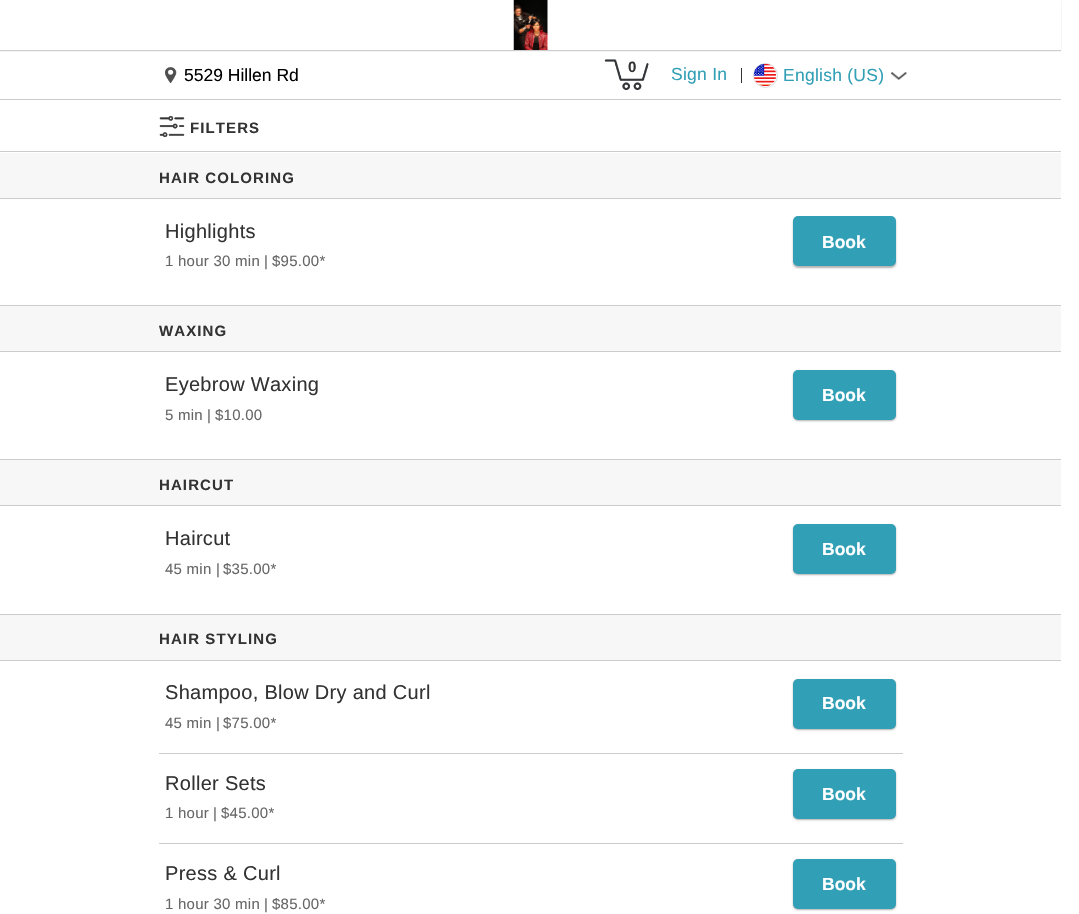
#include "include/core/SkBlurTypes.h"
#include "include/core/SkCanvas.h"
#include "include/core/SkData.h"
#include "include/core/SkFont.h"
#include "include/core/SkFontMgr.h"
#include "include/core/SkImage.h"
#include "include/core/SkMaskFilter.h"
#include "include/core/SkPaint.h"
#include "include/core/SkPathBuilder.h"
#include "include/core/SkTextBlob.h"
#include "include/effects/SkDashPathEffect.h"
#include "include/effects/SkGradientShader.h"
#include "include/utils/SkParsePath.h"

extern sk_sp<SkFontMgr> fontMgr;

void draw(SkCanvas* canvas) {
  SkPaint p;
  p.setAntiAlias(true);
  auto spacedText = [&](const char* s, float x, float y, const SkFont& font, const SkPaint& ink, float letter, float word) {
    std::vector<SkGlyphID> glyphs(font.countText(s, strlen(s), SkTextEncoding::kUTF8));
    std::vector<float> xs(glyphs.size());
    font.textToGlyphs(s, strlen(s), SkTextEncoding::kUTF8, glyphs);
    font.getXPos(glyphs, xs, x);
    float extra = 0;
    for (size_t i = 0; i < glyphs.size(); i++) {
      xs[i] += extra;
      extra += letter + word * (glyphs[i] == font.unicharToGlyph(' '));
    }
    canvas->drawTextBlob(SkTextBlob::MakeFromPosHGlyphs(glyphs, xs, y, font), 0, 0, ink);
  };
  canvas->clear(SK_ColorWHITE);
  p.setColor(SkColorSetRGB(204, 204, 204));
  p.setMaskFilter(SkMaskFilter::MakeBlur(kNormal_SkBlurStyle, 0.5f));
  canvas->drawRect(SkRect::MakeLTRB(0, 1, 1061, 51), p);
  p.setMaskFilter(nullptr);
  p.setColor(SK_ColorWHITE);
  canvas->drawRect(SkRect::MakeLTRB(0, 0, 1061, 50), p);
  canvas->drawImageRect(SkImages::DeferredFromEncodedData(SkData::MakeFromFileName("images/1.png")), SkRect::MakeLTRB(513, 0, 548, 50), SkSamplingOptions());
  p.setColor(SkColorSetRGB(204, 204, 204));
  canvas->drawRect(SkRect::MakeLTRB(0, 99, 1061, 100), p);
  canvas->drawImageRect(SkImages::DeferredFromEncodedData(SkData::MakeFromFileName("images/2.png")), SkRect::MakeLTRB(165, 67, 177, 84), SkSamplingOptions());
  canvas->drawImageRect(SkImages::DeferredFromEncodedData(SkData::MakeFromFileName("images/3.png")), SkRect::MakeLTRB(604, 59, 649, 90), SkSamplingOptions());
  p.setColor(SkColorSetRGB(51, 51, 51));
  canvas->drawRect(SkRect::MakeLTRB(741, 68, 742, 83), p);
  p.setStyle(SkPaint::kStroke_Style);
  p.setStrokeWidth(1);
  p.setColor(SkColorSetRGB(220, 220, 220));
  canvas->drawCircle(765.5f, 75.5f, 12, p);
  canvas->drawImageRect(SkImages::DeferredFromEncodedData(SkData::MakeFromFileName("images/4.png")), SkRect::MakeLTRB(753, 63, 777, 87), SkSamplingOptions());
  canvas->drawImageRect(SkImages::DeferredFromEncodedData(SkData::MakeFromFileName("images/5.png")), SkRect::MakeLTRB(890, 72, 907, 80), SkSamplingOptions());
  p.setStyle(SkPaint::kFill_Style);
  p.setColor(SkColorSetRGB(247, 247, 247));
  canvas->drawRect(SkRect::MakeLTRB(0, 153, 1061, 660), p);
  p.setColor(SkColorSetRGB(204, 204, 204));
  canvas->drawRect(SkRect::MakeLTRB(0, 151, 1061, 152), p);
  canvas->drawImageRect(SkImages::DeferredFromEncodedData(SkData::MakeFromFileName("images/6.png")), SkRect::MakeLTRB(159, 115, 185, 138), SkSamplingOptions());
  p.setColor(SK_ColorWHITE);
  canvas->drawRect(SkRect::MakeLTRB(0, 199, 1061, 305), p);
  p.setColor(SkColorSetRGB(204, 204, 204));
  canvas->drawRect(SkRect::MakeLTRB(0, 198, 1061, 199), p);
  canvas->drawRect(SkRect::MakeLTRB(0, 305, 1061, 306), p);
  p.setColor(SkColorSetARGB(77, 0, 0, 0));
  p.setMaskFilter(SkMaskFilter::MakeBlur(kNormal_SkBlurStyle, 1));
  canvas->drawRoundRect(SkRect::MakeLTRB(793, 218, 896, 268), 5, 5, p);
  p.setMaskFilter(nullptr);
  p.setColor(SkColorSetRGB(49, 159, 181));
  canvas->drawRoundRect(SkRect::MakeLTRB(793, 216, 896, 266), 5, 5, p);
  p.setColor(SK_ColorWHITE);
  canvas->drawRect(SkRect::MakeLTRB(0, 352, 1061, 459), p);
  p.setColor(SkColorSetRGB(204, 204, 204));
  canvas->drawRect(SkRect::MakeLTRB(0, 351, 1061, 352), p);
  canvas->drawRect(SkRect::MakeLTRB(0, 459, 1061, 460), p);
  p.setColor(SkColorSetARGB(77, 0, 0, 0));
  p.setMaskFilter(SkMaskFilter::MakeBlur(kNormal_SkBlurStyle, 1));
  canvas->drawRoundRect(SkRect::MakeLTRB(793, 371, 896, 421), 5, 5, p);
  p.setMaskFilter(nullptr);
  p.setColor(SkColorSetRGB(49, 159, 181));
  canvas->drawRoundRect(SkRect::MakeLTRB(793, 370, 896, 420), 5, 5, p);
  p.setColor(SK_ColorWHITE);
  canvas->drawRect(SkRect::MakeLTRB(0, 506, 1061, 614), p);
  p.setColor(SkColorSetRGB(204, 204, 204));
  canvas->drawRect(SkRect::MakeLTRB(0, 505, 1061, 506), p);
  canvas->drawRect(SkRect::MakeLTRB(0, 614, 1061, 615), p);
  p.setColor(SkColorSetARGB(77, 0, 0, 0));
  p.setMaskFilter(SkMaskFilter::MakeBlur(kNormal_SkBlurStyle, 1));
  canvas->drawRoundRect(SkRect::MakeLTRB(793, 525, 896, 575), 5, 5, p);
  p.setMaskFilter(nullptr);
  p.setColor(SkColorSetRGB(49, 159, 181));
  canvas->drawRoundRect(SkRect::MakeLTRB(793, 524, 896, 574), 5, 5, p);
  p.setColor(SkColorSetRGB(204, 204, 204));
  canvas->drawRect(SkRect::MakeLTRB(0, 660, 1061, 661), p);
  canvas->drawRect(SkRect::MakeLTRB(159, 753, 903, 754), p);
  p.setColor(SkColorSetARGB(77, 0, 0, 0));
  p.setMaskFilter(SkMaskFilter::MakeBlur(kNormal_SkBlurStyle, 1));
  canvas->drawRoundRect(SkRect::MakeLTRB(793, 680, 896, 730), 5, 5, p);
  p.setMaskFilter(nullptr);
  p.setColor(SkColorSetRGB(49, 159, 181));
  canvas->drawRoundRect(SkRect::MakeLTRB(793, 679, 896, 729), 5, 5, p);
  p.setColor(SkColorSetRGB(204, 204, 204));
  canvas->drawRect(SkRect::MakeLTRB(159, 843, 903, 844), p);
  p.setColor(SkColorSetARGB(77, 0, 0, 0));
  p.setMaskFilter(SkMaskFilter::MakeBlur(kNormal_SkBlurStyle, 1));
  canvas->drawRoundRect(SkRect::MakeLTRB(793, 770, 896, 820), 5, 5, p);
  p.setMaskFilter(nullptr);
  p.setColor(SkColorSetRGB(49, 159, 181));
  canvas->drawRoundRect(SkRect::MakeLTRB(793, 769, 896, 819), 5, 5, p);
  p.setColor(SkColorSetARGB(77, 0, 0, 0));
  p.setMaskFilter(SkMaskFilter::MakeBlur(kNormal_SkBlurStyle, 1));
  canvas->drawRoundRect(SkRect::MakeLTRB(793, 860, 896, 910), 5, 5, p);
  p.setMaskFilter(nullptr);
  p.setColor(SkColorSetRGB(49, 159, 181));
  canvas->drawRoundRect(SkRect::MakeLTRB(793, 859, 896, 909), 5, 5, p);
  SkFont font1(fontMgr->matchFamilyStyle("Liberation Sans", SkFontStyle::Normal()), 17.5f);
  font1.setSubpixel(true);
  p.setColor(SK_ColorBLACK);
  canvas->drawString("5529 Hillen Rd", 184, 81, font1, p);
  SkFont font2(fontMgr->matchFamilyStyle("Liberation Sans", SkFontStyle::Bold()), 15);
  font2.setSubpixel(true);
  p.setColor(SkColorSetRGB(51, 51, 51));
  canvas->drawString("0", 628, 72, font2, p);
  p.setColor(SkColorSetRGB(49, 159, 181));
  spacedText("Sign In", 671, 80, font1, p, 0.25f, 0);
  spacedText("English (US)", 783, 81, font1, p, 0.25f, 0);
  p.setColor(SkColorSetRGB(51, 51, 51));
  spacedText("FILTERS", 190, 133, font2, p, 1.1f, 0);
  spacedText("HAIR COLORING", 159, 183, font2, p, 1.1f, 0);
  SkFont font3(fontMgr->matchFamilyStyle("Liberation Sans", SkFontStyle::Normal()), 20);
  font3.setSubpixel(true);
  spacedText("Highlights", 165, 238, font3, p, 0.3f, 0);
  SkFont font4(fontMgr->matchFamilyStyle("Liberation Sans", SkFontStyle::Normal()), 15);
  font4.setSubpixel(true);
  p.setColor(SkColorSetRGB(103, 103, 103));
  spacedText("1 hour 30 min", 165, 266, font4, p, 0.25f, 0);
  spacedText("|", 264, 266, font4, p, 0.25f, 0);
  spacedText("$95.00*", 272, 266, font4, p, 0.25f, 0);
  SkFont font5(fontMgr->matchFamilyStyle("Liberation Sans", SkFontStyle::Bold()), 17.5f);
  font5.setSubpixel(true);
  p.setColor(SK_ColorWHITE);
  canvas->drawString("Book", 822, 248, font5, p);
  p.setColor(SkColorSetRGB(51, 51, 51));
  spacedText("WAXING", 159, 336, font2, p, 1.1f, 0);
  spacedText("Eyebrow Waxing", 165, 391, font3, p, 0.3f, 0);
  p.setColor(SkColorSetRGB(103, 103, 103));
  spacedText("5 min", 165, 420, font4, p, 0.25f, 0);
  spacedText("|", 207, 420, font4, p, 0.25f, 0);
  spacedText("$10.00", 215, 420, font4, p, 0.25f, 0);
  p.setColor(SK_ColorWHITE);
  canvas->drawString("Book", 822, 401, font5, p);
  p.setColor(SkColorSetRGB(51, 51, 51));
  spacedText("HAIRCUT", 159, 490, font2, p, 1.1f, 0);
  spacedText("Haircut", 165, 545, font3, p, 0.3f, 0);
  p.setColor(SkColorSetRGB(103, 103, 103));
  spacedText("45 min", 165, 574, font4, p, 0.25f, 0);
  spacedText("|", 216, 574, font4, p, 0.25f, 0);
  spacedText("$35.00*", 223, 574, font4, p, 0.25f, 0);
  p.setColor(SK_ColorWHITE);
  canvas->drawString("Book", 822, 555, font5, p);
  p.setColor(SkColorSetRGB(51, 51, 51));
  spacedText("HAIR STYLING", 159, 644, font2, p, 1.1f, 0);
  spacedText("Shampoo, Blow Dry and Curl", 165, 699, font3, p, 0.3f, 0);
  p.setColor(SkColorSetRGB(103, 103, 103));
  spacedText("45 min", 165, 728, font4, p, 0.25f, 0);
  spacedText("|", 216, 728, font4, p, 0.25f, 0);
  spacedText("$75.00*", 223, 728, font4, p, 0.25f, 0);
  p.setColor(SK_ColorWHITE);
  canvas->drawString("Book", 822, 709, font5, p);
  p.setColor(SkColorSetRGB(51, 51, 51));
  spacedText("Roller Sets", 165, 790, font3, p, 0.3f, 0);
  p.setColor(SkColorSetRGB(103, 103, 103));
  spacedText("1 hour", 165, 818, font4, p, 0.25f, 0);
  spacedText("|", 213, 818, font4, p, 0.25f, 0);
  spacedText("$45.00*", 221, 818, font4, p, 0.25f, 0);
  p.setColor(SK_ColorWHITE);
  canvas->drawString("Book", 822, 800, font5, p);
  p.setColor(SkColorSetRGB(51, 51, 51));
  spacedText("Press & Curl", 165, 880, font3, p, 0.3f, 0);
  p.setColor(SkColorSetRGB(103, 103, 103));
  spacedText("1 hour 30 min", 165, 909, font4, p, 0.25f, 0);
  spacedText("|", 264, 909, font4, p, 0.25f, 0);
  spacedText("$85.00*", 272, 909, font4, p, 0.25f, 0);
  p.setColor(SK_ColorWHITE);
  canvas->drawString("Book", 822, 890, font5, p);
}
